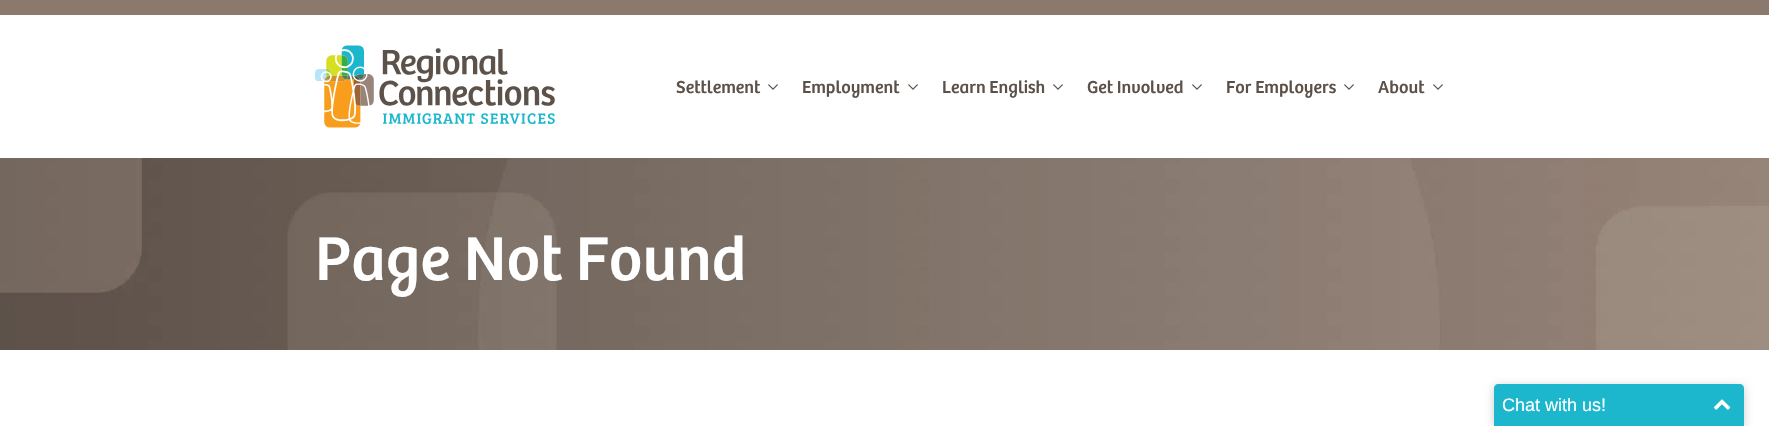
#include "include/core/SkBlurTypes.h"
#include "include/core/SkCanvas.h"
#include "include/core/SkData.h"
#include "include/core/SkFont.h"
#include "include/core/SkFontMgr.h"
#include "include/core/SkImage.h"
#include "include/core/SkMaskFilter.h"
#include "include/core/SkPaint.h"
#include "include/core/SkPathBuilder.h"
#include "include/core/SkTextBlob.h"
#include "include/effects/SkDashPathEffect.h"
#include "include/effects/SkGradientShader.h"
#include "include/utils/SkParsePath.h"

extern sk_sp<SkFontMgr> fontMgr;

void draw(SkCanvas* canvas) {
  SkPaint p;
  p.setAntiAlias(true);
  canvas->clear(SK_ColorWHITE);
  p.setColor(SkColorSetRGB(139, 121, 109));
  canvas->drawRect(SkRect::MakeLTRB(0, 0, 1769, 15), p);
  canvas->drawImageRect(SkImages::DeferredFromEncodedData(SkData::MakeFromFileName("images/1.png")), SkRect::MakeLTRB(315, 45, 555, 128), SkSamplingOptions());
  canvas->drawImageRect(SkImages::DeferredFromEncodedData(SkData::MakeFromFileName("images/2.png")), SkRect::MakeLTRB(768, 84, 778, 90), SkSamplingOptions());
  canvas->drawImageRect(SkImages::DeferredFromEncodedData(SkData::MakeFromFileName("images/2.png")), SkRect::MakeLTRB(908, 84, 918, 90), SkSamplingOptions());
  canvas->drawImageRect(SkImages::DeferredFromEncodedData(SkData::MakeFromFileName("images/2.png")), SkRect::MakeLTRB(1053, 84, 1063, 90), SkSamplingOptions());
  canvas->drawImageRect(SkImages::DeferredFromEncodedData(SkData::MakeFromFileName("images/2.png")), SkRect::MakeLTRB(1192, 84, 1202, 90), SkSamplingOptions());
  canvas->drawImageRect(SkImages::DeferredFromEncodedData(SkData::MakeFromFileName("images/2.png")), SkRect::MakeLTRB(1344, 84, 1354, 90), SkSamplingOptions());
  canvas->drawImageRect(SkImages::DeferredFromEncodedData(SkData::MakeFromFileName("images/2.png")), SkRect::MakeLTRB(1433, 84, 1443, 90), SkSamplingOptions());
  canvas->drawImageRect(SkImages::DeferredFromEncodedData(SkData::MakeFromFileName("images/3.png")), SkRect::MakeLTRB(0, 158, 1769, 350), SkSamplingOptions());
  p.setColor(SkColorSetARGB(51, 0, 0, 0));
  p.setMaskFilter(SkMaskFilter::MakeBlur(kNormal_SkBlurStyle, 5));
  canvas->drawRoundRect(SkRect::MakeLTRB(1494, 386, 1744, 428), 4, 4, p);
  p.setMaskFilter(nullptr);
  p.setColor(SkColorSetRGB(28, 182, 205));
  canvas->drawPath(SkPathBuilder().moveTo(1498, 384).lineTo(1740, 384).cubicTo(1742, 384, 1744, 386, 1744, 388).lineTo(1744, 426).lineTo(1494, 426).lineTo(1494, 388).cubicTo(1494, 386, 1496, 384, 1498, 384).close().detach(), p);
  canvas->drawImageRect(SkImages::DeferredFromEncodedData(SkData::MakeFromFileName("images/4.png")), SkRect::MakeLTRB(1713, 399, 1731, 410), SkSamplingOptions());
  SkFont font1(fontMgr->matchFamilyStyle("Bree", SkFontStyle::Normal()), 18);
  font1.setSubpixel(true);
  p.setColor(SkColorSetRGB(92, 81, 73));
  canvas->drawString("Settlement", 676, 93, font1, p);
  canvas->drawString("Employment", 802, 93, font1, p);
  canvas->drawString("Learn English", 942, 93, font1, p);
  canvas->drawString("Get Involved", 1087, 93, font1, p);
  canvas->drawString("For Employers", 1226, 93, font1, p);
  canvas->drawString("About", 1378, 93, font1, p);
  SkFont font2(fontMgr->matchFamilyStyle("Bree", SkFontStyle::Normal()), 64);
  font2.setSubpixel(true);
  p.setColor(SK_ColorWHITE);
  canvas->drawString("Page Not Found", 315, 280, font2, p);
  SkFont font3(fontMgr->matchFamilyStyle("Liberation Sans", SkFontStyle::Normal()), 18);
  font3.setSubpixel(true);
  canvas->drawString("Chat with us!", 1502, 411, font3, p);
}
